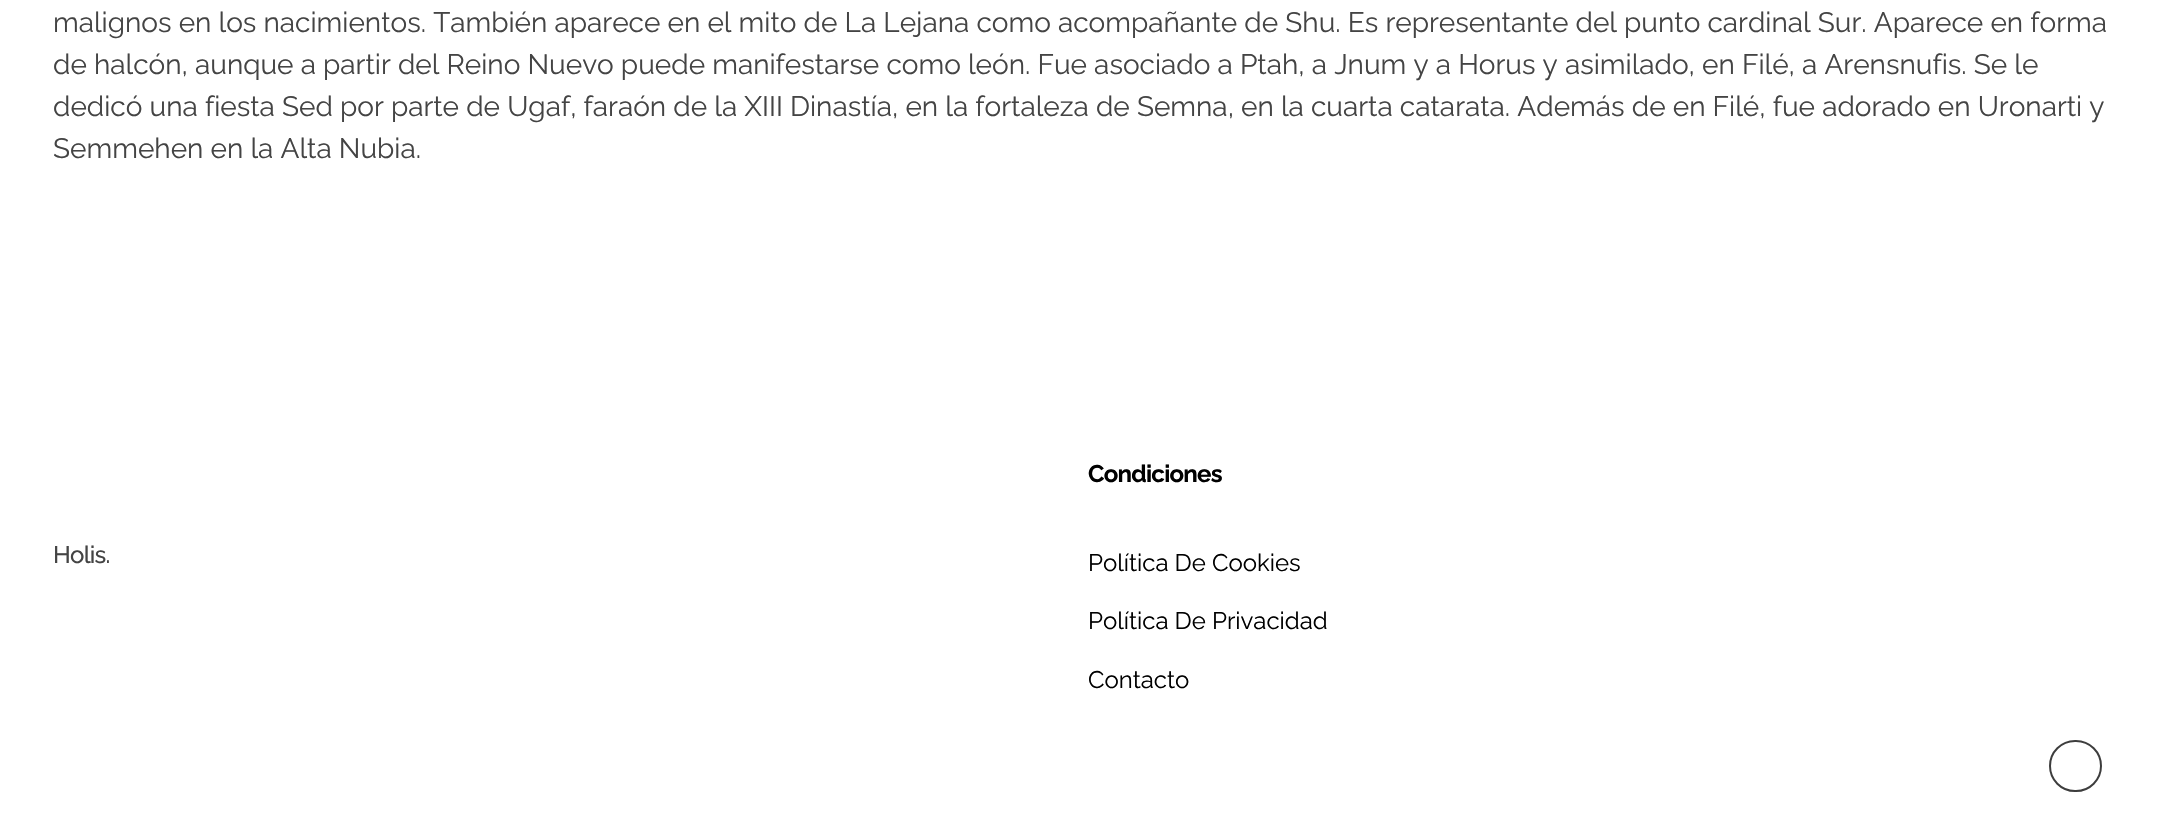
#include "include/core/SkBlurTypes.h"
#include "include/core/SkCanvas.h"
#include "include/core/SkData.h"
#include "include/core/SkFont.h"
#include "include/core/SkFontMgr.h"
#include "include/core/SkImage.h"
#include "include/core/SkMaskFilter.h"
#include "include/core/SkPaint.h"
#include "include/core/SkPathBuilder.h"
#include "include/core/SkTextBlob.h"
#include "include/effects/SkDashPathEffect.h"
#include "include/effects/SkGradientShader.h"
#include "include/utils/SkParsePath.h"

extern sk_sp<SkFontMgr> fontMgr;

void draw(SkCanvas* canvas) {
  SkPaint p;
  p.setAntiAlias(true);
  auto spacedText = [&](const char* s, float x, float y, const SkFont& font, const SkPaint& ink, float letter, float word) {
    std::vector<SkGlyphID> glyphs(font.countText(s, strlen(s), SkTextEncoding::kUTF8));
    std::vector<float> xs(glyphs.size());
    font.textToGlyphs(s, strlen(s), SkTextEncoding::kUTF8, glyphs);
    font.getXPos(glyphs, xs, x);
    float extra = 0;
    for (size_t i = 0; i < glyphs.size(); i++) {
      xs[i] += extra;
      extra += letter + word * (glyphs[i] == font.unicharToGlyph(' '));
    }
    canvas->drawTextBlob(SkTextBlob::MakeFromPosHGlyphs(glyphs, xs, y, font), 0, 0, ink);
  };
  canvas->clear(SK_ColorWHITE);
  p.setStyle(SkPaint::kStroke_Style);
  p.setStrokeWidth(2);
  p.setColor(SkColorSetRGB(61, 61, 61));
  canvas->drawRoundRect(SkRect::MakeLTRB(2050, 741, 2101, 791), 25, 25, p);
  SkFont font1(fontMgr->matchFamilyStyle("Raleway", SkFontStyle::Normal()), 28);
  font1.setSubpixel(true);
  p.setStyle(SkPaint::kFill_Style);
  p.setColor(SkColorSetRGB(68, 68, 68));
  canvas->drawString("malignos en los nacimientos. También aparece en el mito de La Lejana como acompañante de Shu. Es representante del punto cardinal Sur. Aparece en forma", 53, 32, font1, p);
  canvas->drawString("de halcón, aunque a partir del Reino Nuevo puede manifestarse como león. Fue asociado a Ptah, a Jnum y a Horus y asimilado, en Filé, a Arensnufis. Se le", 53, 74, font1, p);
  canvas->drawString("dedicó una fiesta Sed por parte de Ugaf, faraón de la XIII Dinastía, en la fortaleza de Semna, en la cuarta catarata. Además de en Filé, fue adorado en Uronarti y", 53, 116, font1, p);
  canvas->drawString("Semmehen en la Alta Nubia.", 53, 158, font1, p);
  SkFont font2(fontMgr->matchFamilyStyle("Raleway", SkFontStyle(500, SkFontStyle::kNormal_Width, SkFontStyle::kUpright_Slant)), 24);
  font2.setSubpixel(true);
  spacedText("Holis.", 53, 563, font2, p, -0.75f, 0);
  SkFont font3(fontMgr->matchFamilyStyle("Raleway", SkFontStyle::Bold()), 24);
  font3.setSubpixel(true);
  p.setColor(SK_ColorBLACK);
  spacedText("Condiciones", 1088, 482, font3, p, -0.75f, 0);
  SkFont font4(fontMgr->matchFamilyStyle("Raleway", SkFontStyle::Normal()), 24);
  font4.setSubpixel(true);
  canvas->drawString("Política De Cookies", 1088, 571, font4, p);
  canvas->drawString("Política De Privacidad", 1088, 629, font4, p);
  canvas->drawString("Contacto", 1088, 688, font4, p);
}
